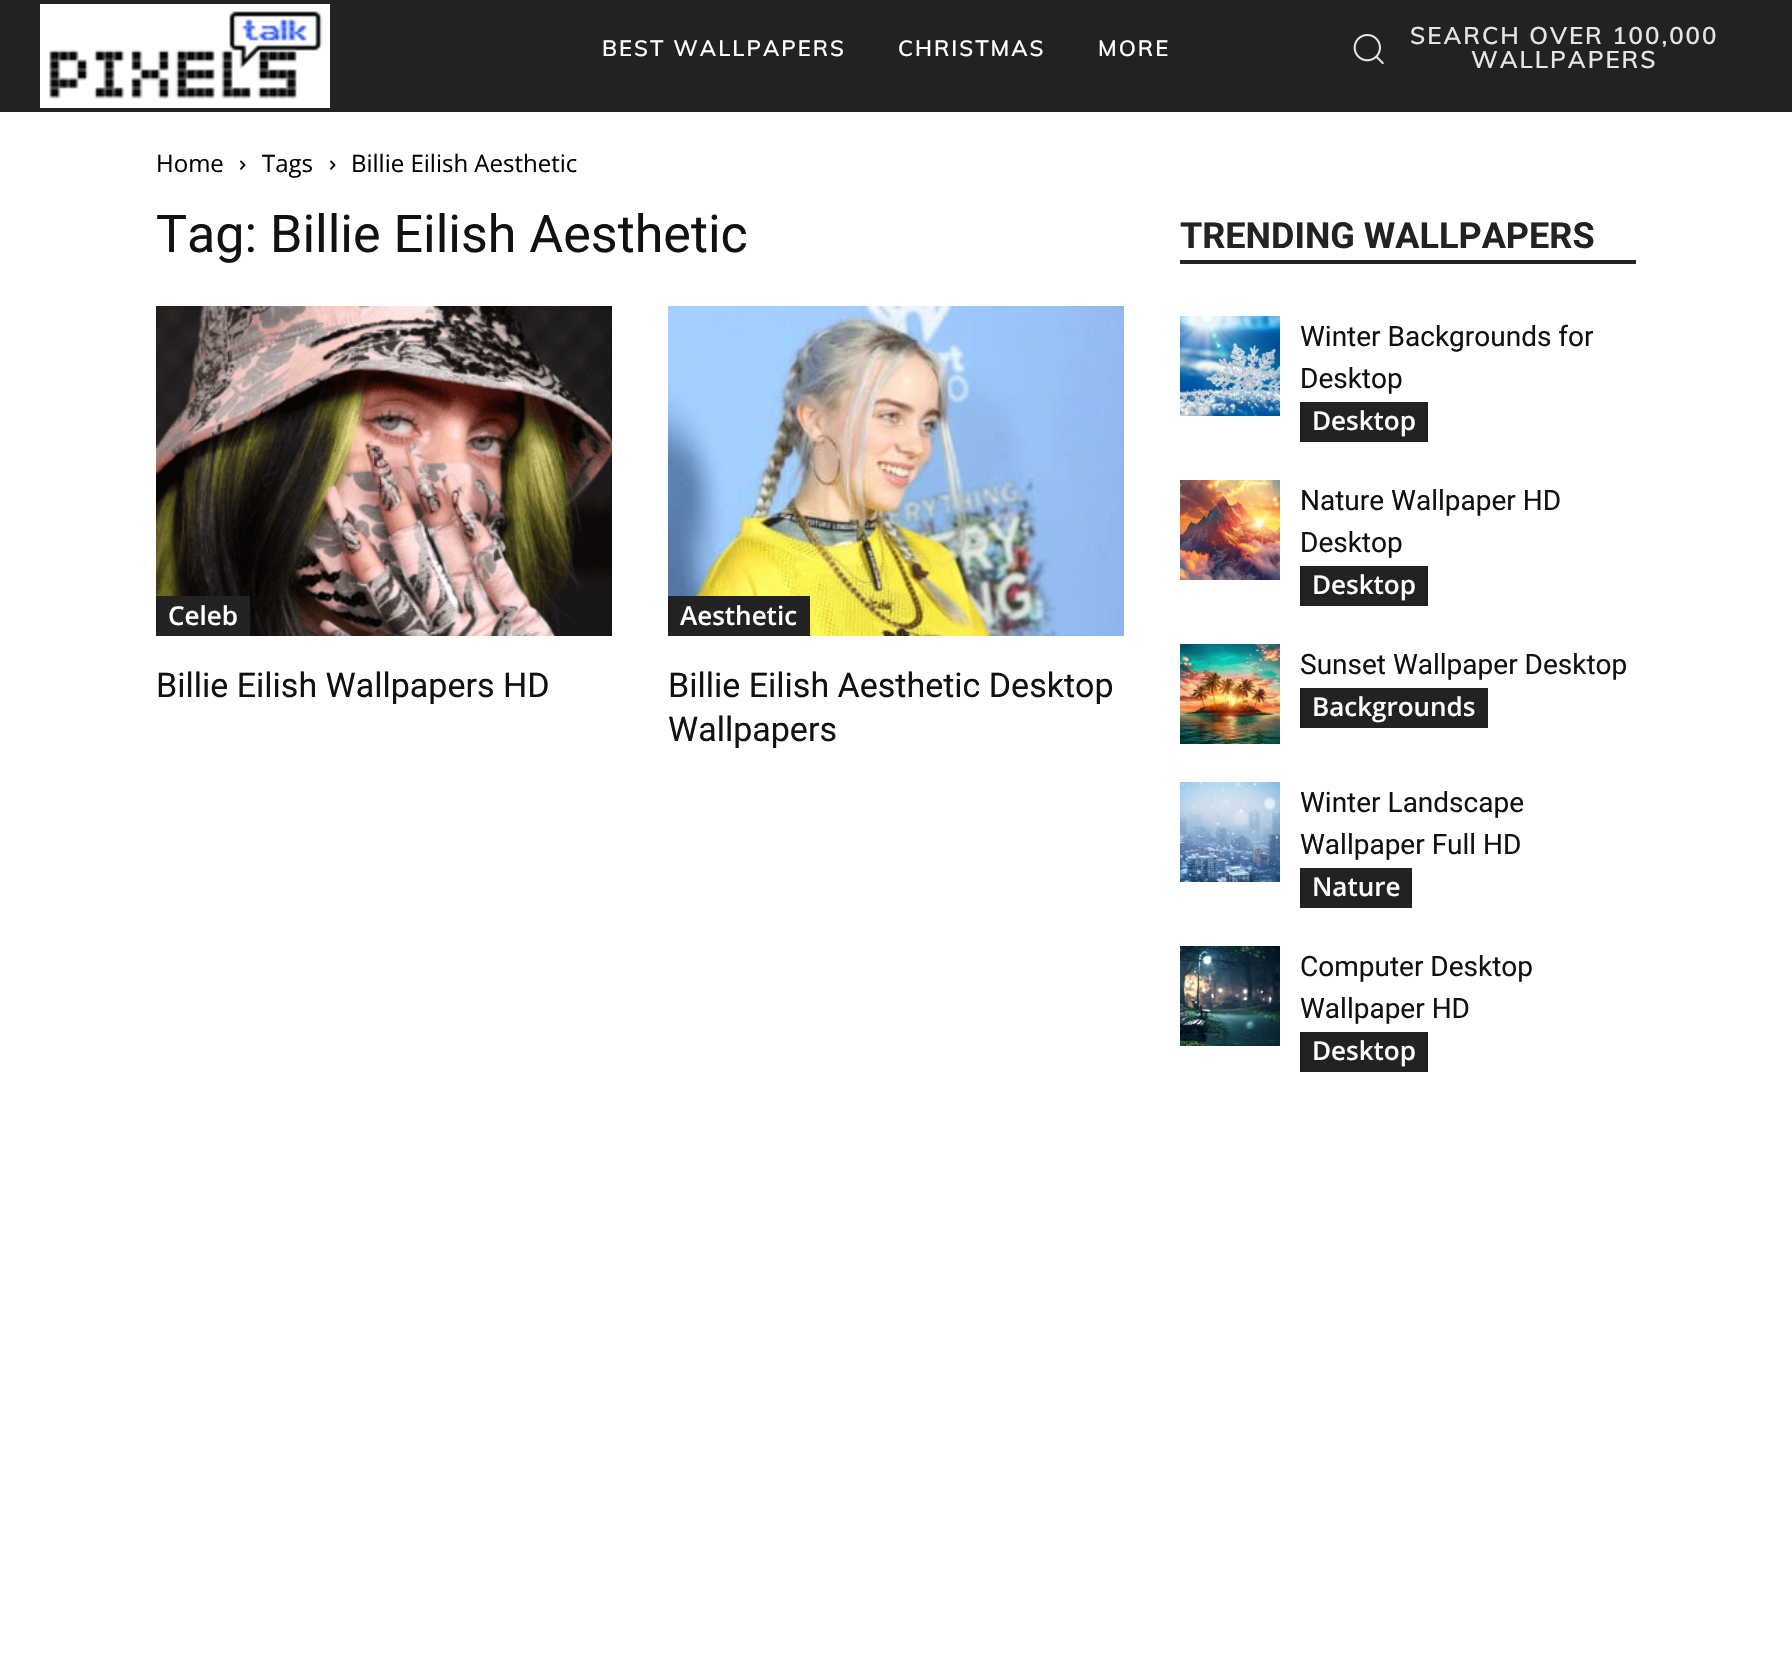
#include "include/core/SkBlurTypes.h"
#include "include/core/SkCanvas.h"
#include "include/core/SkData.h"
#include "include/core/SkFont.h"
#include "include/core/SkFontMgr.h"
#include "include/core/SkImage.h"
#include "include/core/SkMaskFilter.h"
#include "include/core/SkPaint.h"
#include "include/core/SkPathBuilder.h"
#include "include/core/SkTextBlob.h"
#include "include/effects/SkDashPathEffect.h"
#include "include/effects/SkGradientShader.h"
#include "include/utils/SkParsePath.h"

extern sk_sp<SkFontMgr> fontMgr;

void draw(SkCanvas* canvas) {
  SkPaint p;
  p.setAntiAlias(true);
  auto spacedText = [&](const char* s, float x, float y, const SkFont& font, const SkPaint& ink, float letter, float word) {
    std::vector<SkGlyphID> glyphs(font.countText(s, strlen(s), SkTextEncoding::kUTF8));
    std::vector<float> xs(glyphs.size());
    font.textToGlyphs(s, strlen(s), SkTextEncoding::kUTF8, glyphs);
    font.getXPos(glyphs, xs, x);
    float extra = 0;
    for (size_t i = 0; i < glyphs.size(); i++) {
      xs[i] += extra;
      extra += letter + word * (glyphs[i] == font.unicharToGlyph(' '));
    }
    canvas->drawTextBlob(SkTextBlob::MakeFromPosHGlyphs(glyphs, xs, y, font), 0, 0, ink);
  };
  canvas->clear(SK_ColorWHITE);
  p.setColor(SkColorSetRGB(34, 34, 34));
  canvas->drawRect(SkRect::MakeLTRB(0, 0, 1792, 112), p);
  canvas->drawImageRect(SkImages::DeferredFromEncodedData(SkData::MakeFromFileName("images/1.png")), SkRect::MakeLTRB(40, 4, 330, 108), SkSamplingOptions());
  canvas->drawImageRect(SkImages::DeferredFromEncodedData(SkData::MakeFromFileName("images/2.png")), SkRect::MakeLTRB(1353, 34, 1384, 65), SkSamplingOptions());
  canvas->drawImageRect(SkImages::DeferredFromEncodedData(SkData::MakeFromFileName("images/3.png")), SkRect::MakeLTRB(240, 160, 246, 170), SkSamplingOptions());
  canvas->drawImageRect(SkImages::DeferredFromEncodedData(SkData::MakeFromFileName("images/3.png")), SkRect::MakeLTRB(330, 160, 336, 170), SkSamplingOptions());
  canvas->drawImageRect(SkImages::DeferredFromEncodedData(SkData::MakeFromFileName("images/4.png")), SkRect::MakeLTRB(156, 306, 612, 636), SkSamplingOptions());
  canvas->drawRect(SkRect::MakeLTRB(156, 596, 250, 636), p);
  canvas->drawImageRect(SkImages::DeferredFromEncodedData(SkData::MakeFromFileName("images/5.png")), SkRect::MakeLTRB(668, 306, 1124, 636), SkSamplingOptions());
  canvas->drawRect(SkRect::MakeLTRB(668, 596, 810, 636), p);
  canvas->drawRect(SkRect::MakeLTRB(1180, 260, 1636, 264), p);
  canvas->drawImageRect(SkImages::DeferredFromEncodedData(SkData::MakeFromFileName("images/6.png")), SkRect::MakeLTRB(1180, 316, 1280, 416), SkSamplingOptions());
  canvas->drawRect(SkRect::MakeLTRB(1300, 402, 1428, 442), p);
  canvas->drawImageRect(SkImages::DeferredFromEncodedData(SkData::MakeFromFileName("images/7.png")), SkRect::MakeLTRB(1180, 480, 1280, 580), SkSamplingOptions());
  canvas->drawRect(SkRect::MakeLTRB(1300, 566, 1428, 606), p);
  canvas->drawImageRect(SkImages::DeferredFromEncodedData(SkData::MakeFromFileName("images/8.png")), SkRect::MakeLTRB(1180, 644, 1280, 744), SkSamplingOptions());
  canvas->drawRect(SkRect::MakeLTRB(1300, 688, 1488, 728), p);
  canvas->drawImageRect(SkImages::DeferredFromEncodedData(SkData::MakeFromFileName("images/9.png")), SkRect::MakeLTRB(1180, 782, 1280, 882), SkSamplingOptions());
  canvas->drawRect(SkRect::MakeLTRB(1300, 868, 1412, 908), p);
  canvas->drawImageRect(SkImages::DeferredFromEncodedData(SkData::MakeFromFileName("images/10.png")), SkRect::MakeLTRB(1180, 946, 1280, 1046), SkSamplingOptions());
  canvas->drawRect(SkRect::MakeLTRB(1300, 1032, 1428, 1072), p);
  SkFont font1(fontMgr->matchFamilyStyle("Muli", SkFontStyle(600, SkFontStyle::kNormal_Width, SkFontStyle::kUpright_Slant)), 22);
  font1.setSubpixel(true);
  p.setColor(SK_ColorWHITE);
  spacedText("BEST WALLPAPERS", 602, 56, font1, p, 2, 0);
  spacedText("CHRISTMAS", 898, 56, font1, p, 2, 0);
  spacedText("MORE", 1098, 56, font1, p, 2, 0);
  SkFont font2(fontMgr->matchFamilyStyle("Muli", SkFontStyle(600, SkFontStyle::kNormal_Width, SkFontStyle::kUpright_Slant)), 24);
  font2.setSubpixel(true);
  p.setColor(SkColorSetRGB(229, 229, 229));
  spacedText("SEARCH OVER 100,000", 1410, 44, font2, p, 2, 0);
  spacedText("WALLPAPERS", 1471, 68, font2, p, 2, 0);
  SkFont font3(fontMgr->matchFamilyStyle("Open Sans", SkFontStyle::Normal()), 24);
  font3.setSubpixel(true);
  p.setColor(SK_ColorBLACK);
  canvas->drawString("Home", 156, 172, font3, p);
  canvas->drawString("Tags", 262, 172, font3, p);
  canvas->drawString("Billie Eilish Aesthetic", 351, 172, font3, p);
  SkFont font4(fontMgr->matchFamilyStyle("Roboto", SkFontStyle::Normal()), 52);
  font4.setSubpixel(true);
  p.setColor(SkColorSetRGB(17, 17, 17));
  canvas->drawString("Tag: Billie Eilish Aesthetic", 156, 252, font4, p);
  SkFont font5(fontMgr->matchFamilyStyle("Open Sans", SkFontStyle(600, SkFontStyle::kNormal_Width, SkFontStyle::kUpright_Slant)), 26);
  font5.setSubpixel(true);
  p.setColor(SK_ColorWHITE);
  canvas->drawString("Celeb", 168, 625, font5, p);
  SkFont font6(fontMgr->matchFamilyStyle("Roboto", SkFontStyle::Normal()), 34);
  font6.setSubpixel(true);
  p.setColor(SkColorSetRGB(17, 17, 17));
  canvas->drawString("Billie Eilish Wallpapers HD", 156, 697, font6, p);
  p.setColor(SK_ColorWHITE);
  canvas->drawString("Aesthetic", 680, 625, font5, p);
  p.setColor(SkColorSetRGB(17, 17, 17));
  canvas->drawString("Billie Eilish Aesthetic Desktop", 668, 697, font6, p);
  canvas->drawString("Wallpapers", 668, 741, font6, p);
  SkFont font7(fontMgr->matchFamilyStyle("Roboto", SkFontStyle::Bold()), 36);
  font7.setSubpixel(true);
  p.setColor(SkColorSetRGB(34, 34, 34));
  canvas->drawString("TRENDING WALLPAPERS", 1180, 248, font7, p);
  SkFont font8(fontMgr->matchFamilyStyle("Roboto", SkFontStyle::Normal()), 28);
  font8.setSubpixel(true);
  p.setColor(SkColorSetRGB(17, 17, 17));
  canvas->drawString("Winter Backgrounds for", 1300, 346, font8, p);
  canvas->drawString("Desktop", 1300, 388, font8, p);
  p.setColor(SK_ColorWHITE);
  canvas->drawString("Desktop", 1312, 430, font5, p);
  p.setColor(SkColorSetRGB(17, 17, 17));
  canvas->drawString("Nature Wallpaper HD", 1300, 510, font8, p);
  canvas->drawString("Desktop", 1300, 552, font8, p);
  p.setColor(SK_ColorWHITE);
  canvas->drawString("Desktop", 1312, 594, font5, p);
  p.setColor(SkColorSetRGB(17, 17, 17));
  canvas->drawString("Sunset Wallpaper Desktop", 1300, 674, font8, p);
  p.setColor(SK_ColorWHITE);
  canvas->drawString("Backgrounds", 1312, 716, font5, p);
  p.setColor(SkColorSetRGB(17, 17, 17));
  canvas->drawString("Winter Landscape", 1300, 812, font8, p);
  canvas->drawString("Wallpaper Full HD", 1300, 854, font8, p);
  p.setColor(SK_ColorWHITE);
  canvas->drawString("Nature", 1312, 896, font5, p);
  p.setColor(SkColorSetRGB(17, 17, 17));
  canvas->drawString("Computer Desktop", 1300, 976, font8, p);
  canvas->drawString("Wallpaper HD", 1300, 1018, font8, p);
  p.setColor(SK_ColorWHITE);
  canvas->drawString("Desktop", 1312, 1060, font5, p);
}
